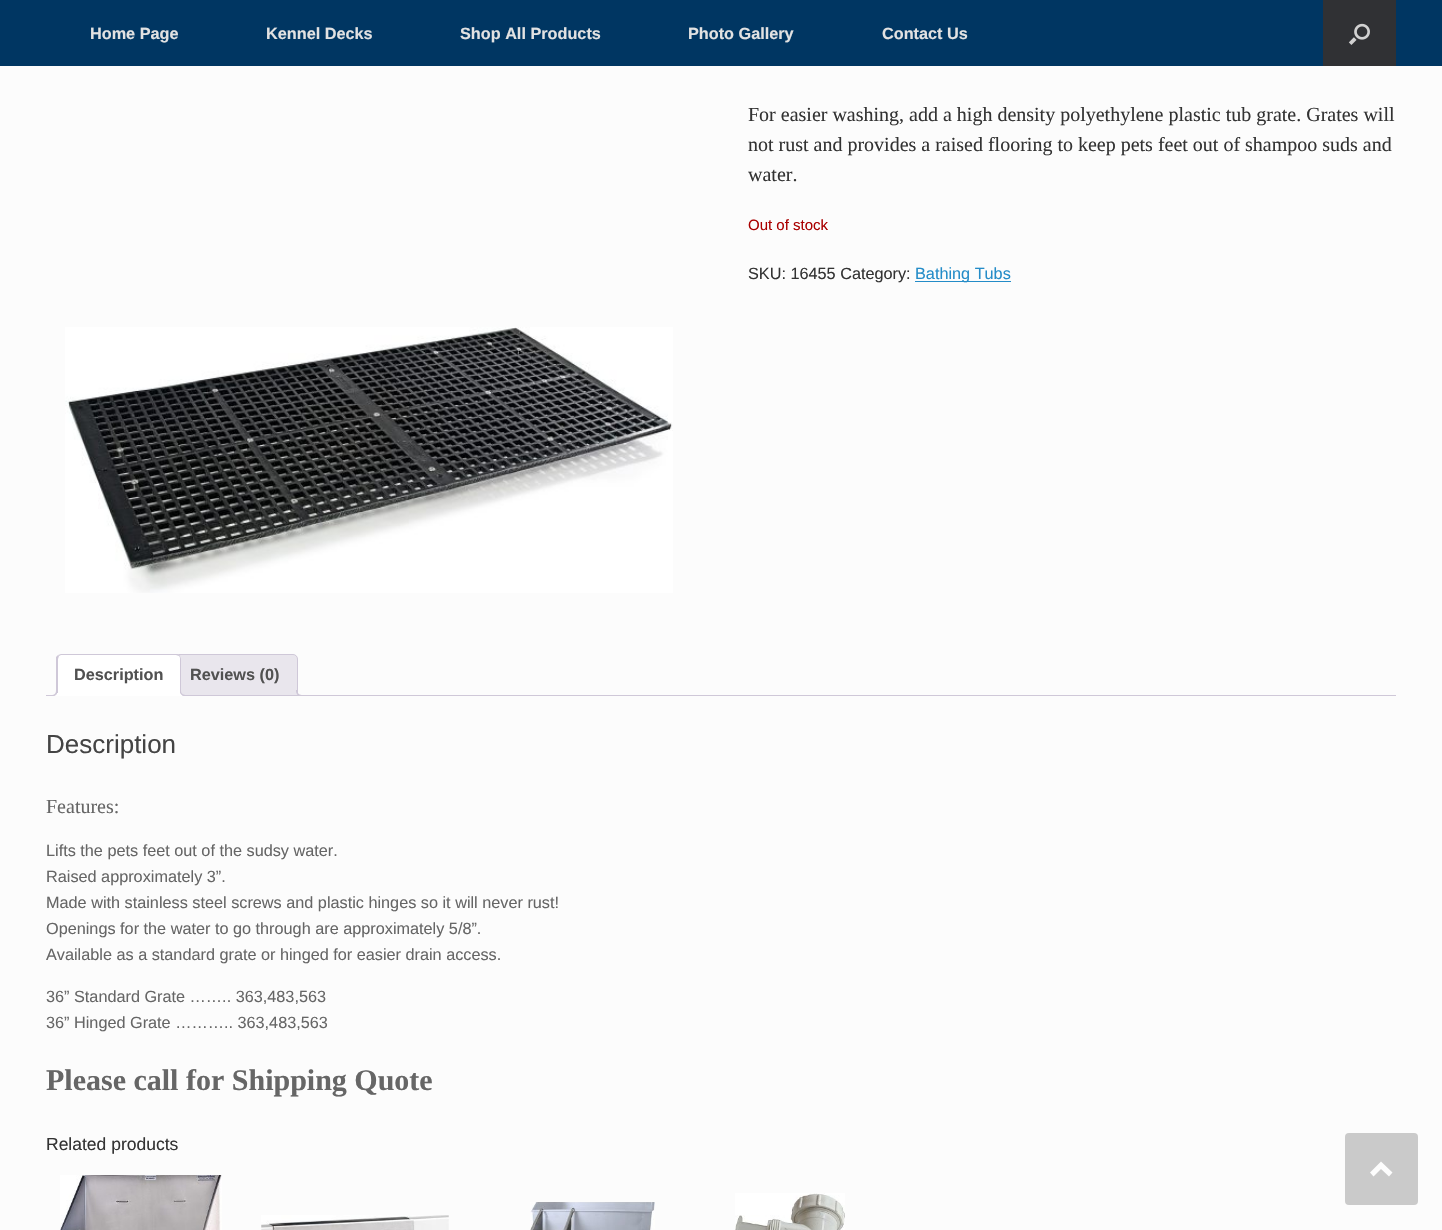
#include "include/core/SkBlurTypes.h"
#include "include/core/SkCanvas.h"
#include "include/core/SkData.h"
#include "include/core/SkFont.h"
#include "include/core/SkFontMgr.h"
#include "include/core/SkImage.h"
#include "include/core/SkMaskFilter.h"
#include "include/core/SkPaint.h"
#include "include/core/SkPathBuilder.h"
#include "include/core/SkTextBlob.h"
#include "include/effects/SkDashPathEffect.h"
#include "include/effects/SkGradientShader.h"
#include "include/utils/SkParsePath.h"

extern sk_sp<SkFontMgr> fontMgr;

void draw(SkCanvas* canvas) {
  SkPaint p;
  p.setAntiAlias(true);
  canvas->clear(SkColorSetRGB(252, 252, 252));
  p.setColor(SkColorSetRGB(0, 54, 98));
  canvas->drawRect(SkRect::MakeLTRB(0, 0, 1442, 66), p);
  p.setColor(SkColorSetRGB(48, 49, 52));
  canvas->drawRect(SkRect::MakeLTRB(1323, 0, 1396, 66), p);
  canvas->drawImageRect(SkImages::DeferredFromEncodedData(SkData::MakeFromFileName("images/1.png")), SkRect::MakeLTRB(1348, 23, 1370, 45), SkSamplingOptions());
  p.setColor(SkColorSetRGB(36, 140, 200));
  canvas->drawRect(SkRect::MakeLTRB(915, 281, 1011, 282), p);
  canvas->drawImageRect(SkImages::DeferredFromEncodedData(SkData::MakeFromFileName("images/2.png")), SkRect::MakeLTRB(65, 327, 673, 593), SkSamplingOptions());
  p.setColor(SkColorSetRGB(233, 230, 237));
  canvas->drawPath(SkPathBuilder().moveTo(178, 654.5f).lineTo(293, 654.5f).cubicTo(295.5f, 654.5f, 297.5f, 656.5f, 297.5f, 659).lineTo(297.5f, 695.5f).lineTo(173.5f, 695.5f).lineTo(173.5f, 659).cubicTo(173.5f, 656.5f, 175.5f, 654.5f, 178, 654.5f).close().detach(), p);
  p.setStyle(SkPaint::kStroke_Style);
  p.setStrokeWidth(1);
  p.setColor(SkColorSetRGB(207, 200, 216));
  canvas->drawPath(SkPathBuilder().moveTo(178, 654.5f).lineTo(293, 654.5f).cubicTo(295.5f, 654.5f, 297.5f, 656.5f, 297.5f, 659).lineTo(297.5f, 695.5f).lineTo(173.5f, 695.5f).lineTo(173.5f, 659).cubicTo(173.5f, 656.5f, 175.5f, 654.5f, 178, 654.5f).close().detach(), p);
  canvas->save();
  canvas->clipRect(SkRect::MakeLTRB(46, 654, 1396, 696));
  p.setStyle(SkPaint::kFill_Style);
  p.setColor(SkColorSetRGB(233, 230, 237));
  canvas->drawPath(SkPathBuilder().moveTo(294, 693).cubicTo(294, 697, 296, 699, 300, 699).lineTo(300, 696).cubicTo(298.5f, 695.5f, 297, 694.5f, 296.5f, 693).close().detach(), p);
  canvas->restore();
  p.setColor(SkColorSetRGB(207, 200, 216));
  canvas->drawPath(SkPathBuilder(SkPathFillType::kEvenOdd).moveTo(296, 690).lineTo(302.5f, 690).lineTo(302.5f, 696).cubicTo(299.5f, 696, 296, 695, 296, 691).close().moveTo(297.5f, 690).lineTo(302.5f, 690).lineTo(302.5f, 695).cubicTo(300, 695, 297.5f, 694, 297.5f, 691).close().detach(), p);
  canvas->drawRect(SkRect::MakeLTRB(46, 695, 1396, 696), p);
  p.setColor(SK_ColorWHITE);
  canvas->drawPath(SkPathBuilder().moveTo(61, 654).lineTo(176, 654).cubicTo(179, 654, 181, 656, 181, 659).lineTo(181, 696).lineTo(56, 696).lineTo(56, 659).cubicTo(56, 656, 58, 654, 61, 654).close().detach(), p);
  p.setColor(SkColorSetRGB(207, 200, 216));
  canvas->drawPath(SkPathBuilder().moveTo(61, 654).lineTo(58, 655).lineTo(59, 656).lineTo(61, 655).lineTo(176, 655).lineTo(179, 656).lineTo(180, 655).cubicTo(179, 654, 178, 654, 176, 654).close().detach(), p);
  canvas->drawPath(SkPathBuilder().moveTo(181, 696).lineTo(181, 659).cubicTo(181, 658, 180, 656, 180, 655).lineTo(179, 656).cubicTo(180, 657, 180, 658, 180, 659).lineTo(180, 695).close().detach(), p);
  p.setColor(SK_ColorWHITE);
  canvas->drawPath(SkPathBuilder().moveTo(181, 696).lineTo(180, 695).lineTo(58, 695).lineTo(58, 694).lineTo(56, 696).close().detach(), p);
  p.setColor(SkColorSetRGB(207, 200, 216));
  canvas->drawPath(SkPathBuilder().moveTo(56, 657).lineTo(58, 655).lineTo(59, 656).lineTo(58, 659).lineTo(58, 694).lineTo(56, 696).close().detach(), p);
  canvas->save();
  canvas->clipRect(SkRect::MakeLTRB(46, 654, 1396, 696));
  p.setColor(SK_ColorWHITE);
  canvas->drawPath(SkPathBuilder().moveTo(54, 696).lineTo(54, 699).cubicTo(58, 699, 60, 697, 60, 693).lineTo(57, 693).cubicTo(56.5f, 694.5f, 55.5f, 695.5f, 54, 696).close().detach(), p);
  canvas->restore();
  p.setColor(SkColorSetRGB(207, 200, 216));
  canvas->drawPath(SkPathBuilder(SkPathFillType::kEvenOdd).moveTo(51, 690).lineTo(57.5f, 690).cubicTo(57.5f, 694.5f, 55.5f, 696, 51, 696).close().moveTo(51, 690).lineTo(56, 690).cubicTo(56, 693.5f, 55, 695, 51, 695).close().detach(), p);
  canvas->save();
  canvas->clipRect(SkRect::MakeLTRB(46, 654, 1396, 696));
  p.setColor(SK_ColorWHITE);
  canvas->drawPath(SkPathBuilder().moveTo(178, 693).cubicTo(178, 697, 180, 699, 184, 699).lineTo(184, 696).cubicTo(182.5f, 696, 181, 694.5f, 180.5f, 693).close().detach(), p);
  canvas->restore();
  p.setColor(SkColorSetRGB(207, 200, 216));
  canvas->drawPath(SkPathBuilder(SkPathFillType::kEvenOdd).moveTo(180, 690).lineTo(186, 690).lineTo(186, 696).cubicTo(183, 696, 180, 695, 180, 691).close().moveTo(181, 690).lineTo(186, 690).lineTo(186, 695).cubicTo(184, 695, 181, 694, 181, 691).close().detach(), p);
  canvas->drawImageRect(SkImages::DeferredFromEncodedData(SkData::MakeFromFileName("images/3.png")), SkRect::MakeLTRB(60, 1175, 222, 1230), SkSamplingOptions());
  canvas->drawImageRect(SkImages::DeferredFromEncodedData(SkData::MakeFromFileName("images/4.png")), SkRect::MakeLTRB(261, 1215, 449, 1230), SkSamplingOptions());
  canvas->drawImageRect(SkImages::DeferredFromEncodedData(SkData::MakeFromFileName("images/5.png")), SkRect::MakeLTRB(530, 1202, 655, 1230), SkSamplingOptions());
  canvas->drawImageRect(SkImages::DeferredFromEncodedData(SkData::MakeFromFileName("images/6.png")), SkRect::MakeLTRB(735, 1193, 845, 1230), SkSamplingOptions());
  p.setColor(SkColorSetRGB(202, 202, 202));
  canvas->drawRoundRect(SkRect::MakeLTRB(1345, 1133, 1418, 1205), 4, 4, p);
  p.setColor(SkColorSetRGB(253, 253, 253));
  canvas->drawPath(SkPathBuilder().moveTo(1392.5f, 1172.5f).lineTo(1381, 1161.5f).lineTo(1370, 1172.5f).lineTo(1373.5f, 1176.5f).lineTo(1381, 1169).lineTo(1389, 1176.5f).close().detach(), p);
  SkFont font1(fontMgr->matchFamilyStyle("Liberation Sans", SkFontStyle::Bold()), 16.25f);
  font1.setSubpixel(true);
  p.setColor(SkColorSetRGB(226, 226, 226));
  canvas->drawString("Home Page", 90, 39, font1, p);
  canvas->drawString("Kennel Decks", 266, 39, font1, p);
  canvas->drawString("Shop All Products", 460, 39, font1, p);
  canvas->drawString("Photo Gallery", 688, 39, font1, p);
  canvas->drawString("Contact Us", 882, 39, font1, p);
  SkFont font2(fontMgr->matchFamilyStyle("Liberation Serif", SkFontStyle::Normal()), 20);
  font2.setSubpixel(true);
  p.setColor(SkColorSetRGB(51, 51, 51));
  canvas->drawString("For easier washing, add a high density polyethylene plastic tub grate. Grates will", 748, 121, font2, p);
  canvas->drawString("not rust and provides a raised flooring to keep pets feet out of shampoo suds and", 748, 151, font2, p);
  canvas->drawString("water.", 748, 181, font2, p);
  SkFont font3(fontMgr->matchFamilyStyle("Liberation Sans", SkFontStyle::Normal()), 15);
  font3.setSubpixel(true);
  p.setColor(SkColorSetRGB(170, 0, 0));
  canvas->drawString("Out of stock", 748, 230, font3, p);
  SkFont font4(fontMgr->matchFamilyStyle("Liberation Sans", SkFontStyle::Normal()), 16.25f);
  font4.setSubpixel(true);
  p.setColor(SkColorSetRGB(51, 51, 51));
  canvas->drawString("SKU: 16455 Category:", 748, 279, font4, p);
  p.setColor(SkColorSetRGB(36, 140, 200));
  canvas->drawString("Bathing Tubs", 915, 279, font4, p);
  p.setColor(SkColorSetRGB(81, 81, 81));
  canvas->drawString("Description", 74, 680, font1, p);
  canvas->drawString("Reviews (0)", 190, 680, font1, p);
  SkFont font5(fontMgr->matchFamilyStyle("Liberation Sans", SkFontStyle::Normal()), 26);
  font5.setSubpixel(true);
  p.setColor(SkColorSetRGB(68, 68, 68));
  canvas->drawString("Description", 46, 753, font5, p);
  p.setColor(SkColorSetRGB(102, 102, 102));
  canvas->drawString("Features:", 46, 813, font2, p);
  canvas->drawString("Lifts the pets feet out of the sudsy water.", 46, 856, font4, p);
  canvas->drawString("Raised approximately 3”.", 46, 882, font4, p);
  canvas->drawString("Made with stainless steel screws and plastic hinges so it will never rust!", 46, 908, font4, p);
  canvas->drawString("Openings for the water to go through are approximately 5/8”.", 46, 934, font4, p);
  canvas->drawString("Available as a standard grate or hinged for easier drain access.", 46, 960, font4, p);
  canvas->drawString("36” Standard Grate …….. 363,483,563", 46, 1002, font4, p);
  canvas->drawString("36” Hinged Grate ……….. 363,483,563", 46, 1028, font4, p);
  SkFont font6(fontMgr->matchFamilyStyle("Liberation Serif", SkFontStyle::Bold()), 30);
  font6.setSubpixel(true);
  canvas->drawString("Please call for Shipping Quote", 46, 1090, font6, p);
  SkFont font7(fontMgr->matchFamilyStyle("Liberation Sans", SkFontStyle::Normal()), 17.5f);
  font7.setSubpixel(true);
  p.setColor(SkColorSetRGB(51, 51, 51));
  canvas->drawString("Related products", 46, 1150, font7, p);
}
